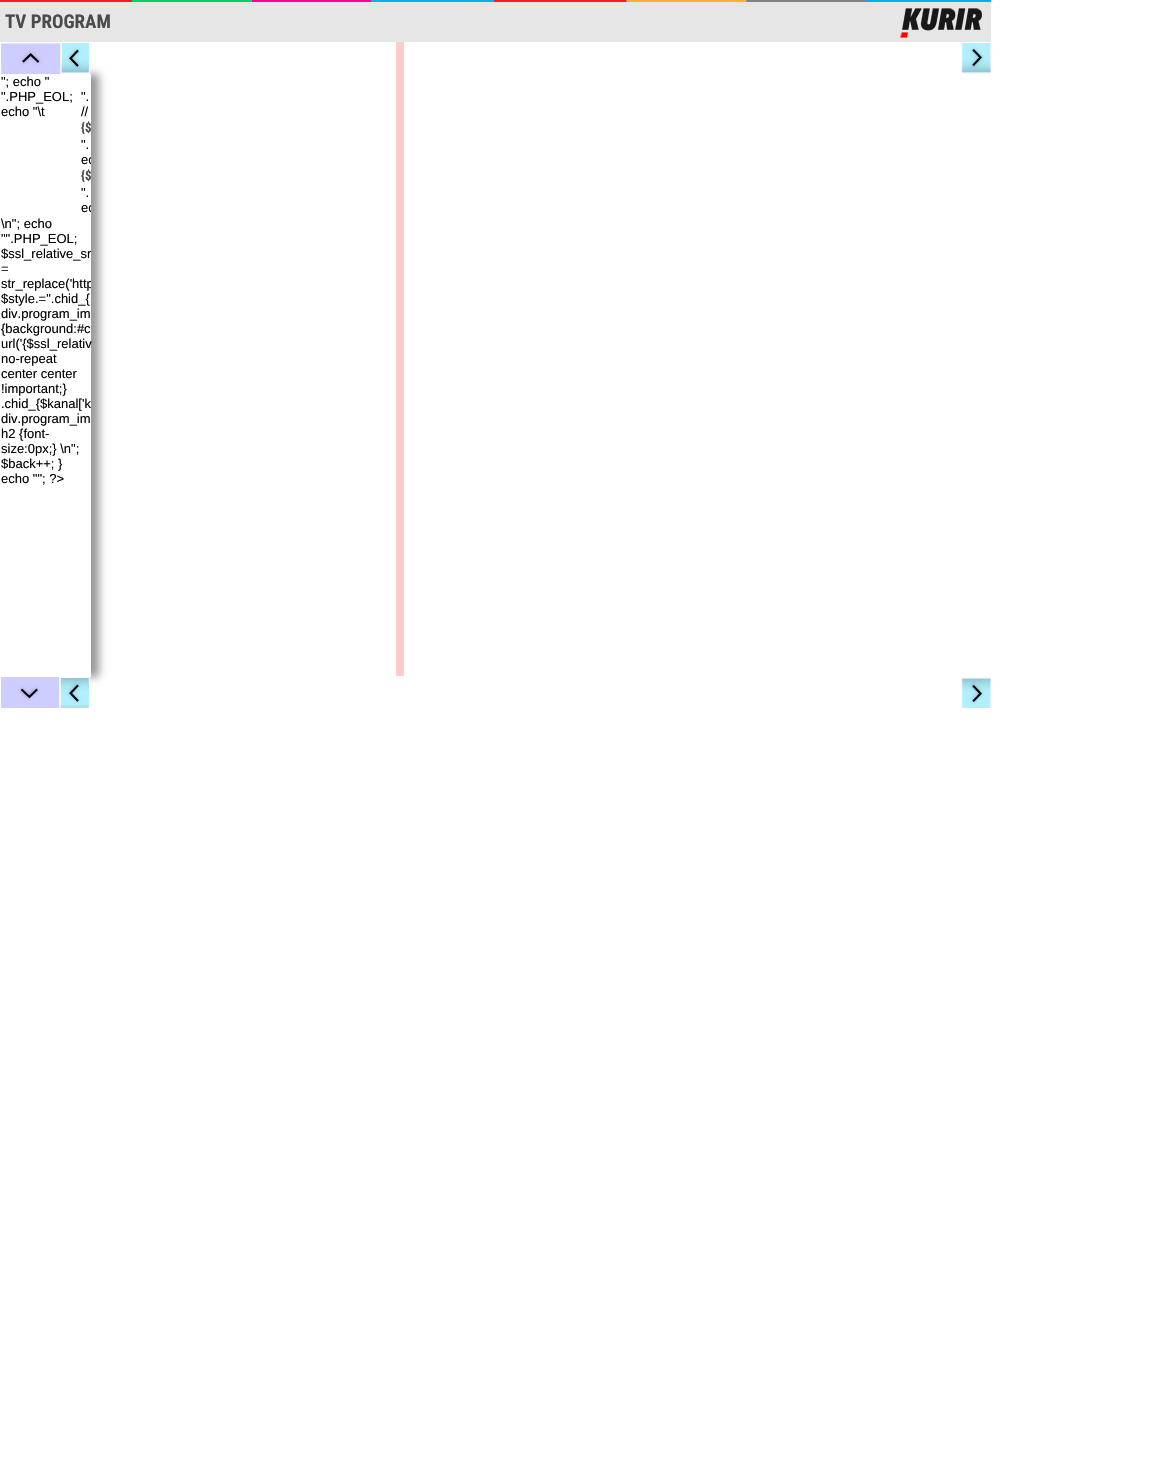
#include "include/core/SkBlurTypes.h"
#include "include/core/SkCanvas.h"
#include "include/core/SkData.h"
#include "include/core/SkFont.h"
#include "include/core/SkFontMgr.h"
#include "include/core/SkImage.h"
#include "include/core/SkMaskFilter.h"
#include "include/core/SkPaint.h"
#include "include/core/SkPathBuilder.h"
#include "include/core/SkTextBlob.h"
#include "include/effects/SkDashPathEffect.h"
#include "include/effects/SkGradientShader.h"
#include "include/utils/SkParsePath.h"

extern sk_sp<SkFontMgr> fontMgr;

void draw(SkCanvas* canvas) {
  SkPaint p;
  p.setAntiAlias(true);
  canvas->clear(SK_ColorWHITE);
  p.setColor(SkColorSetRGB(230, 230, 230));
  canvas->drawRect(SkRect::MakeLTRB(0, 2, 991, 42), p);
  canvas->drawImageRect(SkImages::DeferredFromEncodedData(SkData::MakeFromFileName("images/1.png")), SkRect::MakeLTRB(0, 0, 991, 2), SkSamplingOptions());
  canvas->drawImageRect(SkImages::DeferredFromEncodedData(SkData::MakeFromFileName("images/2.png")), SkRect::MakeLTRB(900, 8, 982, 38), SkSamplingOptions());
  canvas->save();
  canvas->clipPath(SkPathBuilder(SkPathFillType::kEvenOdd).moveTo(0, 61).lineTo(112, 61).lineTo(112, 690).lineTo(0, 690).close().moveTo(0, 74).lineTo(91, 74).lineTo(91, 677).lineTo(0, 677).close().detach(), true);
  p.setColor(SkColorSetRGB(153, 153, 153));
  p.setMaskFilter(SkMaskFilter::MakeBlur(kNormal_SkBlurStyle, 4));
  canvas->drawRect(SkRect::MakeLTRB(8, 74, 99, 677), p);
  p.setMaskFilter(nullptr);
  canvas->restore();
  p.setColor(SK_ColorWHITE);
  canvas->drawRect(SkRect::MakeLTRB(2, 66, 61, 74), p);
  canvas->drawImageRect(SkImages::DeferredFromEncodedData(SkData::MakeFromFileName("images/3.png")), SkRect::MakeLTRB(1, 43, 61, 74), SkSamplingOptions());
  canvas->drawImageRect(SkImages::DeferredFromEncodedData(SkData::MakeFromFileName("images/4.png")), SkRect::MakeLTRB(61, 43, 90, 74), SkSamplingOptions());
  canvas->drawRect(SkRect::MakeLTRB(2, 677, 90, 685), p);
  canvas->drawImageRect(SkImages::DeferredFromEncodedData(SkData::MakeFromFileName("images/5.png")), SkRect::MakeLTRB(1, 677, 61, 708), SkSamplingOptions());
  canvas->drawImageRect(SkImages::DeferredFromEncodedData(SkData::MakeFromFileName("images/6.png")), SkRect::MakeLTRB(61, 678, 89, 708), SkSamplingOptions());
  p.setColor(SkColorSetRGB(255, 204, 204));
  canvas->drawRect(SkRect::MakeLTRB(396, 42, 404, 676), p);
  canvas->drawImageRect(SkImages::DeferredFromEncodedData(SkData::MakeFromFileName("images/7.png")), SkRect::MakeLTRB(961, 42, 991, 74), SkSamplingOptions());
  canvas->drawImageRect(SkImages::DeferredFromEncodedData(SkData::MakeFromFileName("images/8.png")), SkRect::MakeLTRB(961, 677, 991, 708), SkSamplingOptions());
  SkFont font1(fontMgr->matchFamilyStyle("Roboto Condensed", SkFontStyle::Bold()), 19);
  font1.setSubpixel(true);
  p.setColor(SkColorSetRGB(75, 75, 75));
  canvas->drawString("TV PROGRAM", 5, 28, font1, p);
  SkFont font2(fontMgr->matchFamilyStyle("Liberation Sans", SkFontStyle::Normal()), 13);
  font2.setSubpixel(true);
  p.setColor(SK_ColorBLACK);
  canvas->drawString("\"; echo \"", 1, 86, font2, p);
  canvas->drawString("\".PHP_EOL;", 1, 101, font2, p);
  canvas->drawString("\".", 81, 101, font2, p);
  canvas->drawString("//", 81, 116, font2, p);
  SkFont font3(fontMgr->matchFamilyStyle("Roboto Condensed", SkFontStyle::Bold()), 13);
  font3.setSubpixel(true);
  p.setColor(SkColorSetRGB(75, 75, 75));
  canvas->drawString("{$", 81, 132, font3, p);
  p.setColor(SK_ColorBLACK);
  canvas->drawString("\".", 81, 149, font2, p);
  canvas->save();
  canvas->clipRect(SkRect::MakeLTRB(1, 89, 91, 215));
  canvas->drawString("ec", 81, 164, font2, p);
  canvas->restore();
  p.setColor(SkColorSetRGB(75, 75, 75));
  canvas->drawString("{$", 81, 180, font3, p);
  p.setColor(SK_ColorBLACK);
  canvas->drawString("\".", 81, 197, font2, p);
  canvas->save();
  canvas->clipRect(SkRect::MakeLTRB(1, 89, 91, 215));
  canvas->drawString("ec", 81, 212, font2, p);
  canvas->restore();
  canvas->drawString("echo \"\\t", 1, 116, font2, p);
  canvas->drawString("\\n\"; echo", 1, 228, font2, p);
  canvas->drawString("\"\".PHP_EOL;", 1, 243, font2, p);
  canvas->drawString("$ssl_relative_sr", 1, 258, font2, p);
  canvas->drawString("=", 1, 273, font2, p);
  canvas->save();
  canvas->clipRect(SkRect::MakeLTRB(1, 74, 91, 677));
  canvas->drawString("str_replace('http", 1, 288, font2, p);
  canvas->restore();
  canvas->drawString("$style.=\".chid_{", 1, 303, font2, p);
  canvas->drawString("div.program_im", 1, 318, font2, p);
  canvas->drawString("{background:#c", 1, 333, font2, p);
  canvas->drawString("url('{$ssl_relativ", 1, 348, font2, p);
  canvas->drawString("no-repeat", 1, 363, font2, p);
  canvas->drawString("center center", 1, 378, font2, p);
  canvas->drawString("!important;}", 1, 393, font2, p);
  canvas->drawString(".chid_{$kanal['k", 1, 408, font2, p);
  canvas->drawString("div.program_im", 1, 423, font2, p);
  canvas->drawString("h2 {font-", 1, 438, font2, p);
  canvas->drawString("size:0px;} \\n\";", 1, 453, font2, p);
  canvas->drawString("$back++; }", 1, 468, font2, p);
  canvas->drawString("echo \"\"; ?>", 1, 483, font2, p);
}
